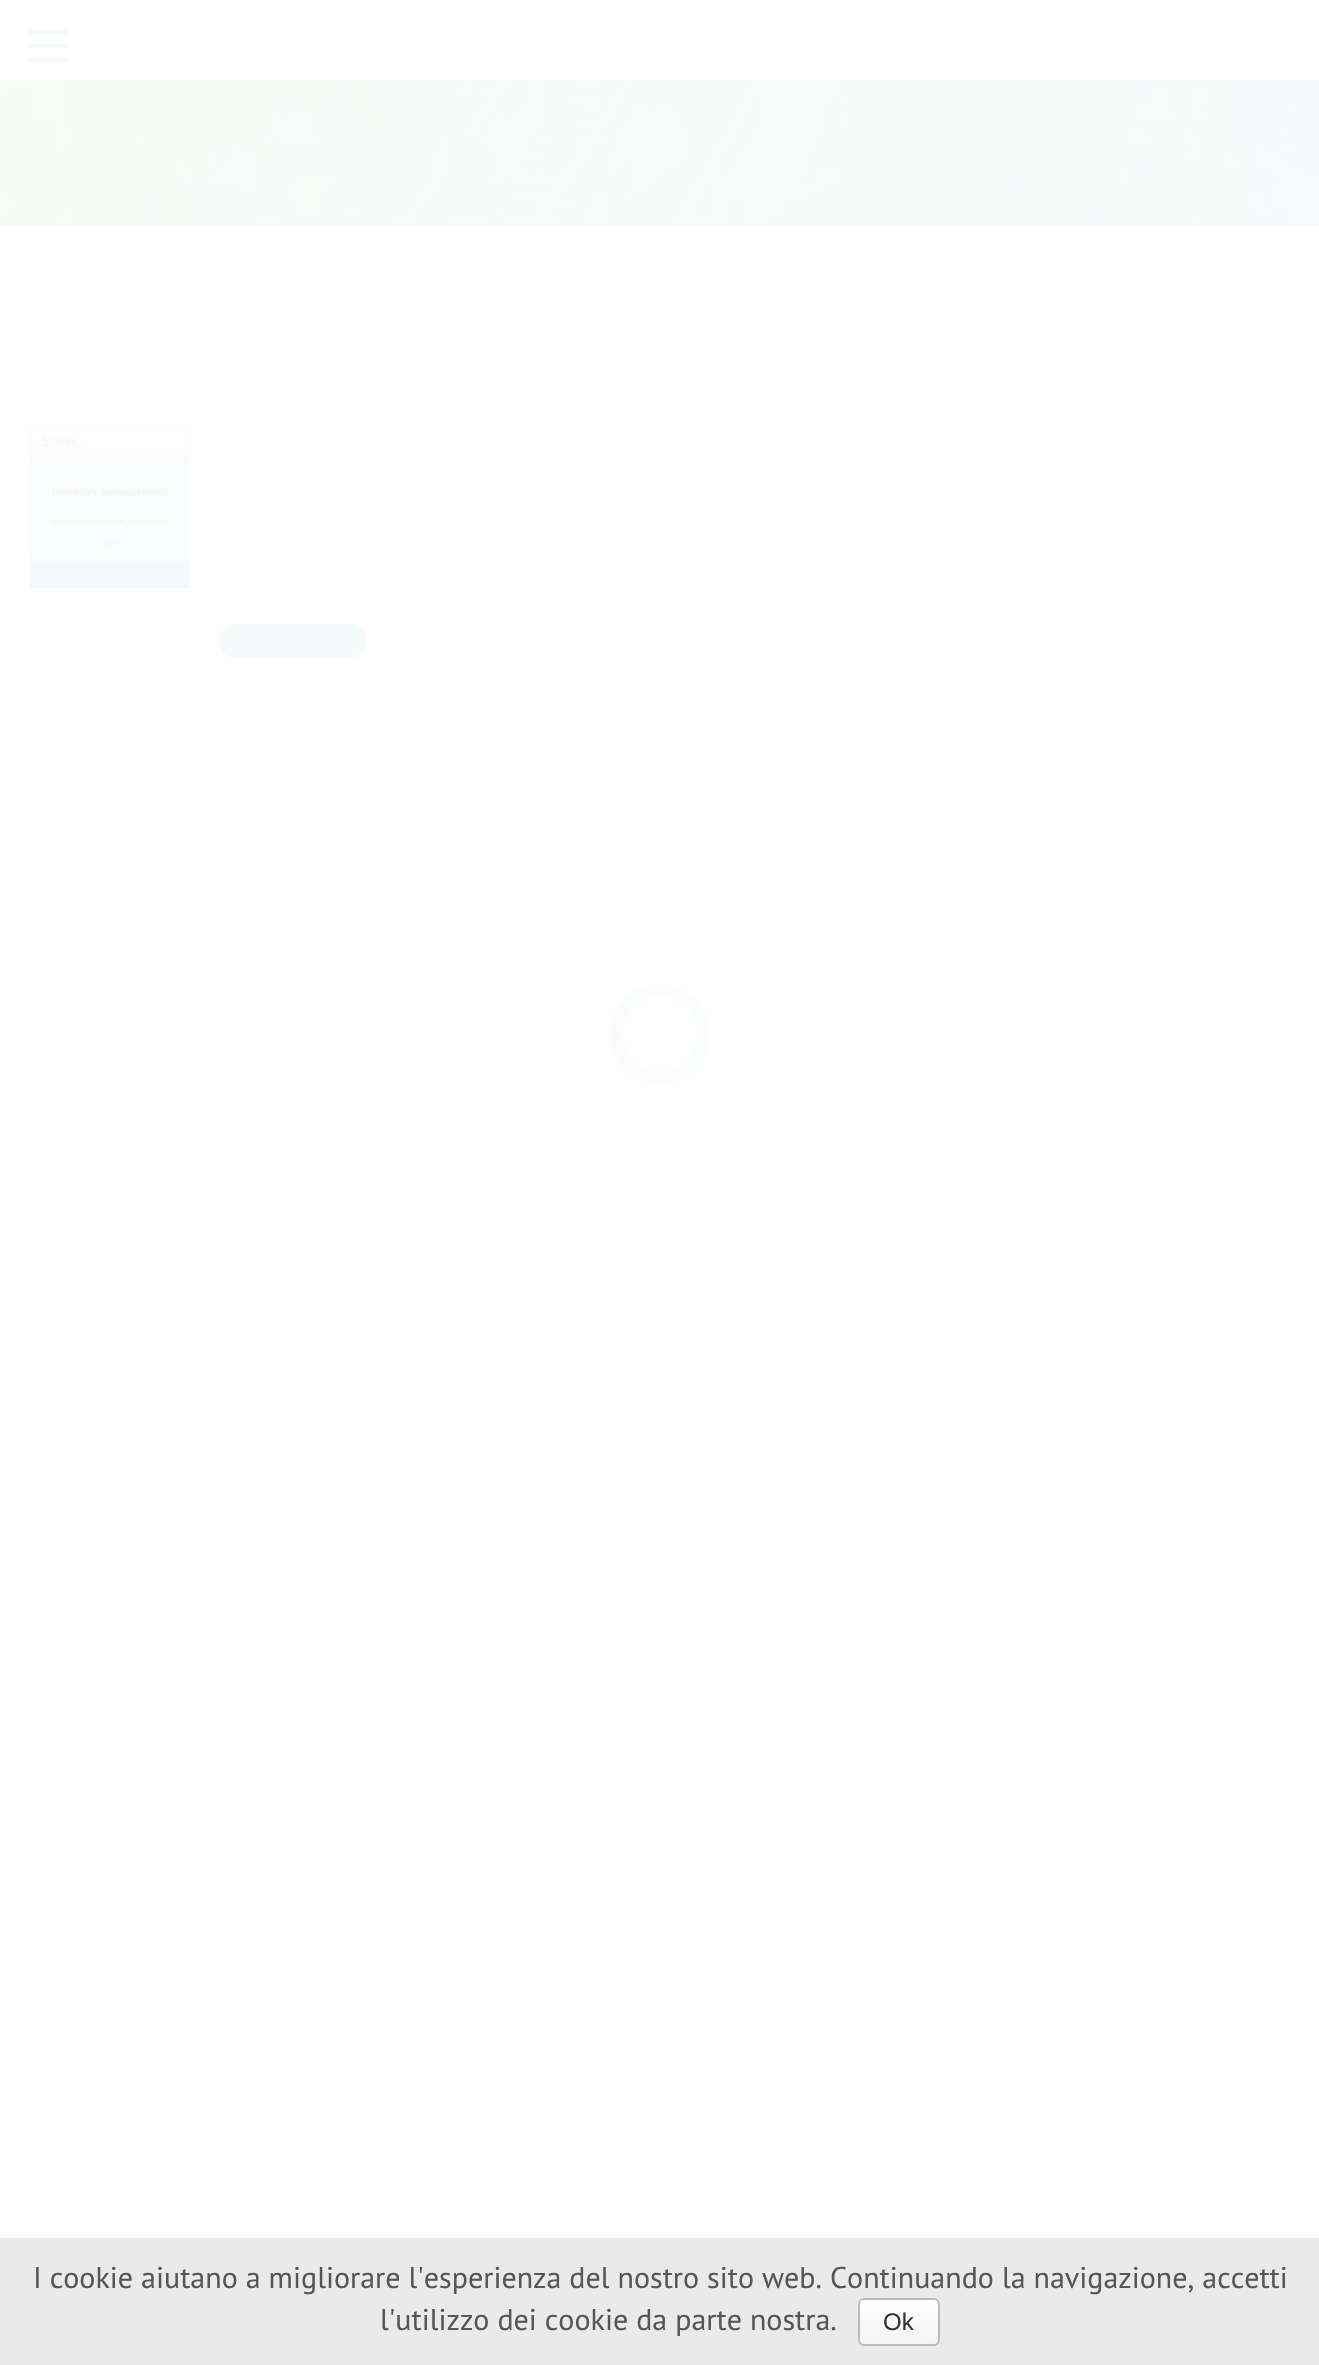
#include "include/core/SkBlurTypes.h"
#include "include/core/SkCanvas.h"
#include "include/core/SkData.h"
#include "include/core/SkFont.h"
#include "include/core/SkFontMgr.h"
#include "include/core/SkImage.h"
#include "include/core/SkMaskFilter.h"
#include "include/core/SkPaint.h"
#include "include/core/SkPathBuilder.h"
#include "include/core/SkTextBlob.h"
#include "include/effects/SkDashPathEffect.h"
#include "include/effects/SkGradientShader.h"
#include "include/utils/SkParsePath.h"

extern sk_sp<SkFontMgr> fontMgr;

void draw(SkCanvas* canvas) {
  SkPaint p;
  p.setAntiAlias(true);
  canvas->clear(SkColorSetRGB(254, 254, 254));
  p.setColor(SkColorSetRGB(244, 251, 251));
  canvas->drawRect(SkRect::MakeLTRB(28, 58, 68, 62), p);
  canvas->drawRect(SkRect::MakeLTRB(28, 44, 68, 48), p);
  canvas->drawRect(SkRect::MakeLTRB(28, 30, 68, 34), p);
  canvas->drawImageRect(SkImages::DeferredFromEncodedData(SkData::MakeFromFileName("images/1.png")), SkRect::MakeLTRB(0, 80, 1319, 226), SkSamplingOptions());
  canvas->drawImageRect(SkImages::DeferredFromEncodedData(SkData::MakeFromFileName("images/2.png")), SkRect::MakeLTRB(30, 428, 190, 588), SkSamplingOptions());
  canvas->drawRoundRect(SkRect::MakeLTRB(220, 624, 366, 658), 16, 16, p);
  p.setStyle(SkPaint::kStroke_Style);
  p.setStrokeWidth(12);
  p.setColor(SkColorSetRGB(250, 253, 253));
  canvas->drawPath(SkPathBuilder().moveTo(629, 1003).cubicTo(637, 994.5f, 648.5f, 990, 660, 990).cubicTo(699, 990, 718.5f, 1037.5f, 691, 1065).cubicTo(685, 1071, 677, 1075.5f, 668.5f, 1077).cubicTo(654.5f, 1080, 639, 1075.5f, 629, 1065).detach(), p);
  p.setColor(SkColorSetRGB(250, 252, 252));
  canvas->drawPath(SkPathBuilder().moveTo(629, 1065).cubicTo(612, 1048, 612, 1020, 629, 1003).detach(), p);
  p.setStyle(SkPaint::kFill_Style);
  p.setColor(SkColorSetRGB(234, 234, 234));
  canvas->drawRect(SkRect::MakeLTRB(0, 2238, 1319, 2365), p);
  canvas->save();
  canvas->clipPath(SkPathBuilder().moveTo(864, 2298).lineTo(934, 2298).cubicTo(937.5f, 2298, 940, 2300.5f, 940, 2304).lineTo(940, 2340).cubicTo(940, 2343.5f, 937.5f, 2346, 934, 2346).lineTo(864, 2346).cubicTo(860.5f, 2346, 858, 2343.5f, 858, 2340).lineTo(858, 2304).cubicTo(858, 2300.5f, 860.5f, 2298, 864, 2298).close().detach(), true);
  {
    const SkColor colors[] = {SkColorSetRGB(254, 254, 254), SkColorSetRGB(244, 244, 244)};
    const float stops[] = {0, 1};
    const SkPoint ends[] = {{899, 2300}, {899, 2344}};
    p.setShader(SkGradientShader::MakeLinear(ends, colors, stops, 2, SkTileMode::kClamp));
    p.setAlpha(255);
  }
  canvas->drawRect(SkRect::MakeLTRB(858, 2300, 940, 2344), p);
  canvas->restore();
  p.setStyle(SkPaint::kStroke_Style);
  p.setStrokeWidth(2);
  p.setShader(nullptr);
  p.setColor(SkColorSetRGB(187, 187, 187));
  canvas->drawRoundRect(SkRect::MakeLTRB(859, 2299, 939, 2345), 5, 5, p);
  SkFont font1(fontMgr->matchFamilyStyle("PT Sans", SkFontStyle::Normal()), 30);
  font1.setSubpixel(true);
  p.setStyle(SkPaint::kFill_Style);
  p.setColor(SkColorSetRGB(86, 86, 86));
  canvas->drawString("I cookie aiutano a migliorare l'esperienza del nostro sito web. Continuando la navigazione, accetti", 33, 2288, font1, p);
  canvas->drawString("l'utilizzo dei cookie da parte nostra.", 380, 2330, font1, p);
  SkFont font2(fontMgr->matchFamilyStyle("Liberation Sans", SkFontStyle::Normal()), 24);
  font2.setSubpixel(true);
  p.setColor(SkColorSetRGB(51, 51, 51));
  canvas->drawString("Ok", 883, 2330, font2, p);
}
